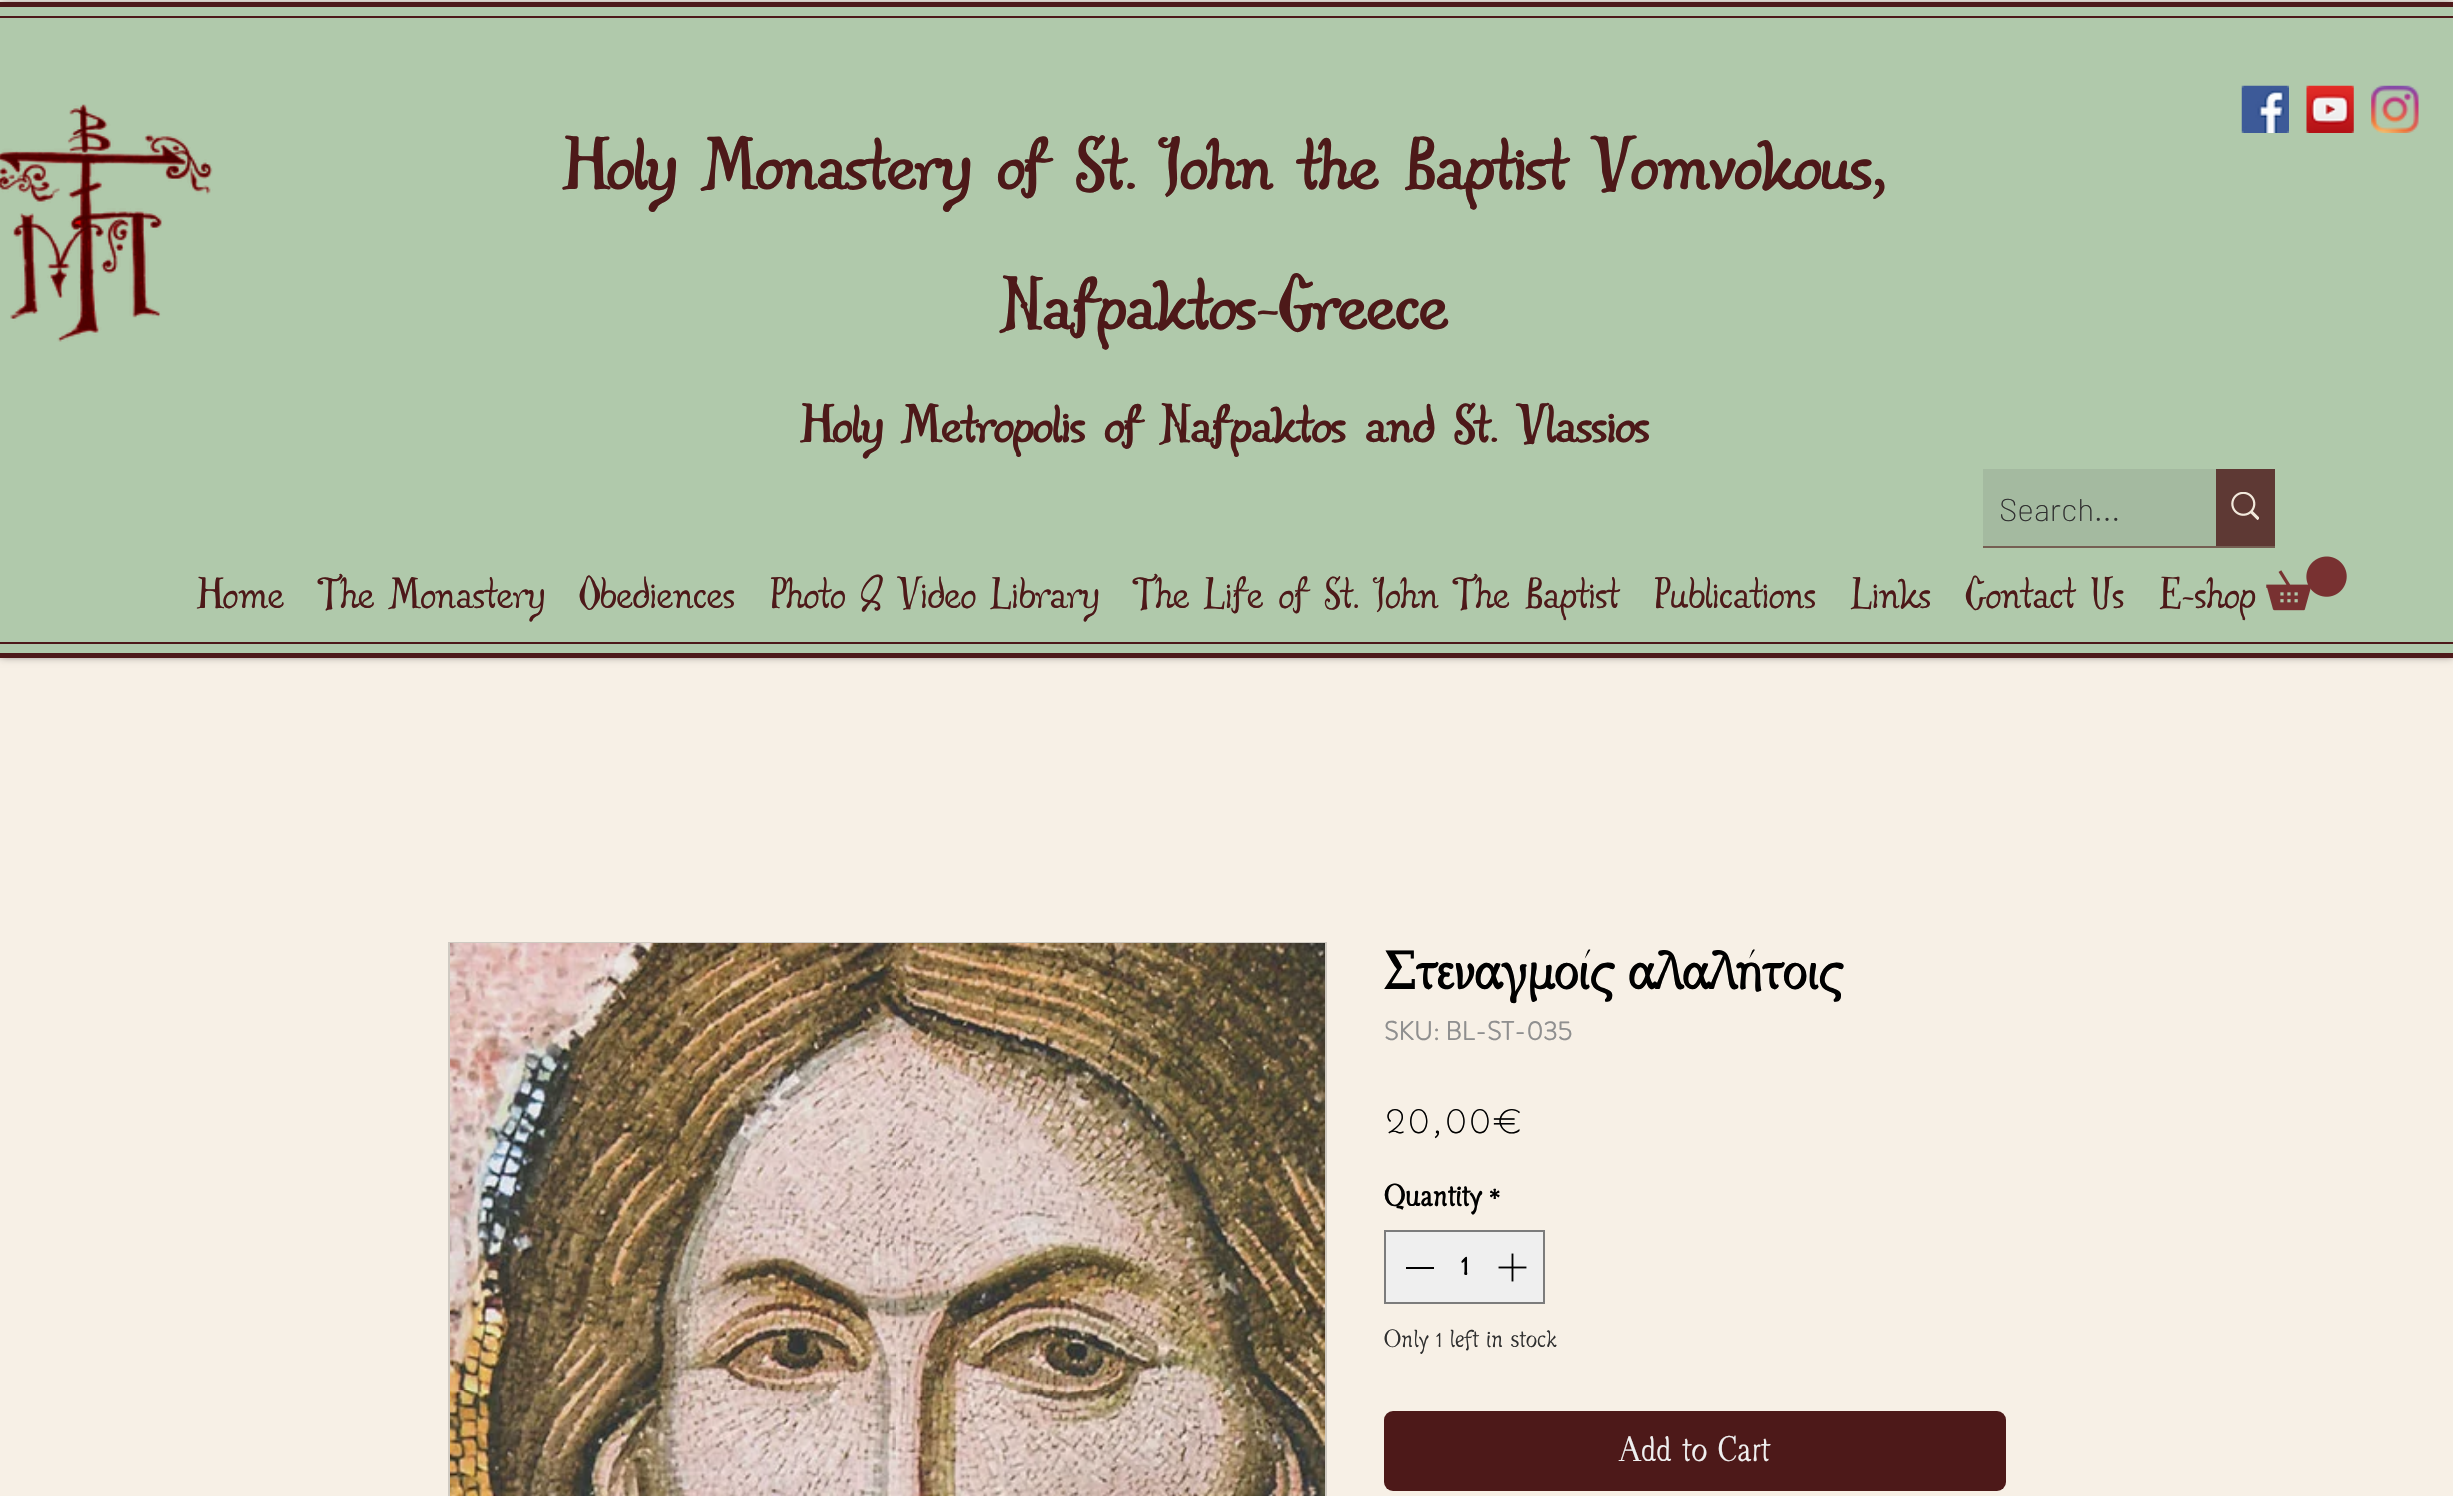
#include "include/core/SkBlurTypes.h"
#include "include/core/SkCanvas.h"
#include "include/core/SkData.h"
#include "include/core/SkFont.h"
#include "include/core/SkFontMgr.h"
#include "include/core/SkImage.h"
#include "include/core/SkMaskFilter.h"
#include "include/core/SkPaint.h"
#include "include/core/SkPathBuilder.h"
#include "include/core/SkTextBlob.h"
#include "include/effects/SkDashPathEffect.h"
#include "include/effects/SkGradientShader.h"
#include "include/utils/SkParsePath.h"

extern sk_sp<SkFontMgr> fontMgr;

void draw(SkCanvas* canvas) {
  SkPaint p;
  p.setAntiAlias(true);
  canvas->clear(SkColorSetRGB(247, 240, 230));
  p.setColor(SkColorSetARGB(179, 0, 0, 0));
  p.setMaskFilter(SkMaskFilter::MakeBlur(kNormal_SkBlurStyle, 4.5f));
  canvas->drawRect(SkRect::MakeLTRB(0, 5, 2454, 655), p);
  p.setMaskFilter(nullptr);
  p.setColor(SkColorSetRGB(176, 201, 171));
  canvas->drawRect(SkRect::MakeLTRB(0, 7, 2453, 653), p);
  p.setColor(SkColorSetRGB(77, 25, 25));
  canvas->drawRect(SkRect::MakeLTRB(0, 2, 2453, 7), p);
  canvas->drawRect(SkRect::MakeLTRB(0, 653, 2453, 658), p);
  canvas->drawRect(SkRect::MakeLTRB(0, 16, 2453, 18), p);
  canvas->drawRect(SkRect::MakeLTRB(0, 642, 2453, 644), p);
  canvas->drawImageRect(SkImages::DeferredFromEncodedData(SkData::MakeFromFileName("images/1.png")), SkRect::MakeLTRB(0, 104, 213, 342), SkSamplingOptions());
  canvas->drawImageRect(SkImages::DeferredFromEncodedData(SkData::MakeFromFileName("images/2.png")), SkRect::MakeLTRB(2241, 85, 2289, 133), SkSamplingOptions());
  canvas->drawImageRect(SkImages::DeferredFromEncodedData(SkData::MakeFromFileName("images/3.png")), SkRect::MakeLTRB(2306, 85, 2354, 133), SkSamplingOptions());
  canvas->drawImageRect(SkImages::DeferredFromEncodedData(SkData::MakeFromFileName("images/4.png")), SkRect::MakeLTRB(2371, 85, 2419, 133), SkSamplingOptions());
  p.setColor(SkColorSetRGB(117, 95, 83));
  canvas->drawRect(SkRect::MakeLTRB(1983, 546, 2275, 548), p);
  p.setColor(SkColorSetRGB(164, 186, 160));
  canvas->drawRect(SkRect::MakeLTRB(1983, 469, 2216, 546), p);
  p.setColor(SkColorSetRGB(94, 57, 52));
  canvas->drawRect(SkRect::MakeLTRB(2216, 469, 2275, 546), p);
  canvas->drawImageRect(SkImages::DeferredFromEncodedData(SkData::MakeFromFileName("images/5.png")), SkRect::MakeLTRB(2231, 492, 2259, 520), SkSamplingOptions());
  canvas->drawImageRect(SkImages::DeferredFromEncodedData(SkData::MakeFromFileName("images/6.png")), SkRect::MakeLTRB(2266, 556, 2347, 611), SkSamplingOptions());
  p.setStyle(SkPaint::kStroke_Style);
  p.setStrokeWidth(2);
  p.setColor(SkColorSetRGB(207, 202, 194));
  canvas->drawRect(SkRect::MakeLTRB(449, 943, 1326, 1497), p);
  canvas->drawImageRect(SkImages::DeferredFromEncodedData(SkData::MakeFromFileName("images/7.png")), SkRect::MakeLTRB(450, 943, 1325, 1496), SkSamplingOptions());
  p.setStyle(SkPaint::kFill_Style);
  p.setColor(SkColorSetRGB(239, 239, 239));
  canvas->drawRect(SkRect::MakeLTRB(1385, 1231, 1544, 1303), p);
  p.setStyle(SkPaint::kStroke_Style);
  p.setColor(SkColorSetRGB(124, 124, 124));
  canvas->drawRect(SkRect::MakeLTRB(1385, 1231, 1544, 1303), p);
  p.setStyle(SkPaint::kFill_Style);
  p.setColor(SK_ColorBLACK);
  canvas->drawRect(SkRect::MakeLTRB(1406, 1267, 1434, 1269), p);
  canvas->drawImageRect(SkImages::DeferredFromEncodedData(SkData::MakeFromFileName("images/8.png")), SkRect::MakeLTRB(1498, 1253, 1527, 1282), SkSamplingOptions());
  p.setColor(SkColorSetRGB(77, 25, 25));
  canvas->drawRoundRect(SkRect::MakeLTRB(1384, 1411, 2006, 1491), 9, 9, p);
  SkFont font1(fontMgr->matchFamilyStyle("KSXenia", SkFontStyle(600, SkFontStyle::kNormal_Width, SkFontStyle::kUpright_Slant)), 96.25f);
  font1.setSubpixel(true);
  canvas->drawString("Holy Monastery of St. John the Baptist Vomvokous,", 565, 189, font1, p);
  canvas->drawString("Nafpaktos-Greece", 1003, 329, font1, p);
  SkFont font2(fontMgr->matchFamilyStyle("KSXenia", SkFontStyle(600, SkFontStyle::kNormal_Width, SkFontStyle::kUpright_Slant)), 70);
  font2.setSubpixel(true);
  canvas->drawString("Holy Metropolis of Nafpaktos and St. Vlassios", 802, 442, font2, p);
  SkFont font3(fontMgr->matchFamilyStyle("Barlow", SkFontStyle(200, SkFontStyle::kNormal_Width, SkFontStyle::kUpright_Slant)), 31.5f);
  font3.setSubpixel(true);
  p.setColor(SkColorSetRGB(48, 48, 48));
  canvas->drawString("Search...", 1999, 521, font3, p);
  SkFont font4(fontMgr->matchFamilyStyle("KSXenia", SkFontStyle::Normal()), 56);
  font4.setSubpixel(true);
  p.setColor(SkColorSetRGB(77, 25, 25));
  canvas->drawString("Home", 198, 608, font4, p);
  canvas->drawString("The Monastery", 319, 608, font4, p);
  canvas->drawString("Obediences", 580, 608, font4, p);
  canvas->drawString("Photo & Video Library", 770, 608, font4, p);
  canvas->drawString("The Life of St. John The Baptist", 1134, 608, font4, p);
  canvas->drawString("Publications", 1654, 608, font4, p);
  canvas->drawString("Links", 1852, 608, font4, p);
  canvas->drawString("Contact Us", 1965, 608, font4, p);
  canvas->drawString("E-shop", 2160, 608, font4, p);
  SkFont font5(fontMgr->matchFamilyStyle("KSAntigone", SkFontStyle::Bold()), 52.5f);
  font5.setSubpixel(true);
  p.setColor(SK_ColorBLACK);
  canvas->drawString("Στεναγμοίς αλαλήτοις", 1384, 989, font5, p);
  SkFont font6(fontMgr->matchFamilyStyle("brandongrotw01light", SkFontStyle::Bold()), 26.25f);
  font6.setSubpixel(true);
  p.setColor(SkColorSetRGB(143, 143, 143));
  canvas->drawString("SKU: BL-ST-035", 1384, 1040, font6, p);
  SkFont font7(fontMgr->matchFamilyStyle("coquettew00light", SkFontStyle(300, SkFontStyle::kNormal_Width, SkFontStyle::kUpright_Slant)), 47);
  font7.setSubpixel(true);
  p.setColor(SK_ColorBLACK);
  canvas->drawString("20,00€", 1384, 1133, font7, p);
  SkFont font8(fontMgr->matchFamilyStyle("KSAntigone", SkFontStyle::Bold()), 30);
  font8.setSubpixel(true);
  canvas->drawString("Quantity", 1384, 1206, font8, p);
  canvas->drawString("*", 1488, 1206, font8, p);
  canvas->drawString("1", 1461, 1275, font8, p);
  SkFont font9(fontMgr->matchFamilyStyle("KSAntigone", SkFontStyle::Normal()), 24.5f);
  font9.setSubpixel(true);
  p.setColor(SkColorSetRGB(48, 48, 48));
  canvas->drawString("Only 1 left in stock", 1384, 1347, font9, p);
  SkFont font10(fontMgr->matchFamilyStyle("KSAntigone", SkFontStyle::Normal()), 35);
  font10.setSubpixel(true);
  p.setColor(SkColorSetRGB(239, 239, 239));
  canvas->drawString("Add to Cart", 1619, 1461, font10, p);
}
